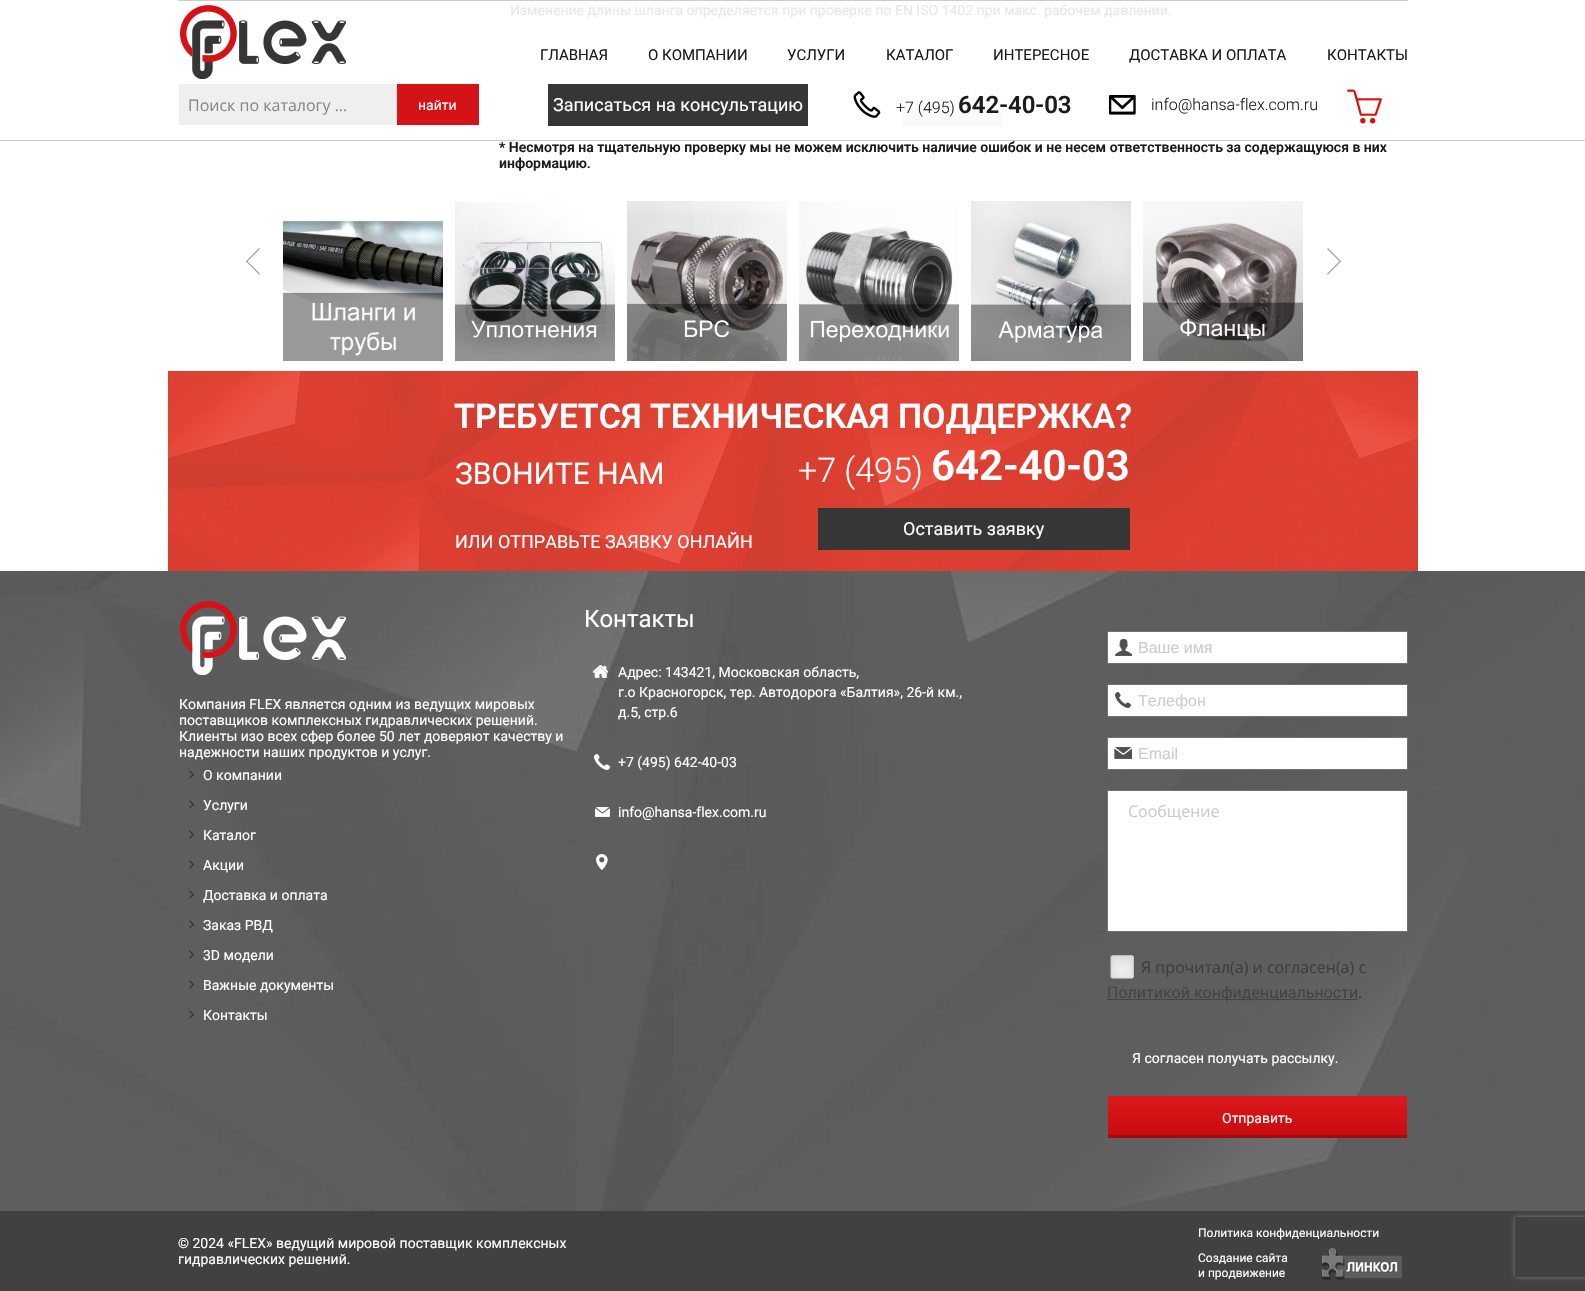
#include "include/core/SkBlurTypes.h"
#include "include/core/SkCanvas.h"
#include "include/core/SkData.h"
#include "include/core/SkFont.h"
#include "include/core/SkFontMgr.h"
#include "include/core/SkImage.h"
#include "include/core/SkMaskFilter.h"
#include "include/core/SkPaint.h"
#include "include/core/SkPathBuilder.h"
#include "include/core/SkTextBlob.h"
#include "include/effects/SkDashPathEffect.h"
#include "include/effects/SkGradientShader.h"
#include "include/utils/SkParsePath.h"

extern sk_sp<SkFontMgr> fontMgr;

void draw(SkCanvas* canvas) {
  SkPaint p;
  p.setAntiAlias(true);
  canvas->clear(SK_ColorWHITE);
  canvas->drawImageRect(SkImages::DeferredFromEncodedData(SkData::MakeFromFileName("images/1.png")), SkRect::MakeLTRB(903, 102, 1003, 127), SkSamplingOptions());
  p.setColor(SkColorSetRGB(204, 204, 204));
  canvas->drawRect(SkRect::MakeLTRB(178, 0, 1408, 1), p);
  canvas->drawImageRect(SkImages::DeferredFromEncodedData(SkData::MakeFromFileName("images/2.png")), SkRect::MakeLTRB(180, 5, 346, 79), SkSamplingOptions());
  canvas->drawImageRect(SkImages::DeferredFromEncodedData(SkData::MakeFromFileName("images/3.png")), SkRect::MakeLTRB(397, 84, 479, 125), SkSamplingOptions());
  p.setColor(SkColorSetRGB(239, 239, 239));
  canvas->drawRect(SkRect::MakeLTRB(179, 84, 397, 125), p);
  p.setColor(SkColorSetRGB(54, 54, 54));
  canvas->drawRect(SkRect::MakeLTRB(548, 84, 808, 126), p);
  canvas->drawImageRect(SkImages::DeferredFromEncodedData(SkData::MakeFromFileName("images/4.png")), SkRect::MakeLTRB(853, 91, 881, 118), SkSamplingOptions());
  canvas->drawImageRect(SkImages::DeferredFromEncodedData(SkData::MakeFromFileName("images/5.png")), SkRect::MakeLTRB(1108, 95, 1136, 115), SkSamplingOptions());
  canvas->drawImageRect(SkImages::DeferredFromEncodedData(SkData::MakeFromFileName("images/6.png")), SkRect::MakeLTRB(1347, 89, 1382, 124), SkSamplingOptions());
  p.setColor(SkColorSetRGB(204, 204, 204));
  canvas->drawRect(SkRect::MakeLTRB(0, 140, 1585, 141), p);
  canvas->drawImageRect(SkImages::DeferredFromEncodedData(SkData::MakeFromFileName("images/7.png")), SkRect::MakeLTRB(245, 248, 260, 275), SkSamplingOptions());
  canvas->drawImageRect(SkImages::DeferredFromEncodedData(SkData::MakeFromFileName("images/8.png")), SkRect::MakeLTRB(283, 220, 443, 361), SkSamplingOptions());
  canvas->drawImageRect(SkImages::DeferredFromEncodedData(SkData::MakeFromFileName("images/9.png")), SkRect::MakeLTRB(455, 202, 615, 361), SkSamplingOptions());
  canvas->drawImageRect(SkImages::DeferredFromEncodedData(SkData::MakeFromFileName("images/10.png")), SkRect::MakeLTRB(627, 201, 787, 361), SkSamplingOptions());
  canvas->drawImageRect(SkImages::DeferredFromEncodedData(SkData::MakeFromFileName("images/11.png")), SkRect::MakeLTRB(799, 201, 959, 361), SkSamplingOptions());
  canvas->drawImageRect(SkImages::DeferredFromEncodedData(SkData::MakeFromFileName("images/12.png")), SkRect::MakeLTRB(971, 201, 1131, 361), SkSamplingOptions());
  canvas->drawImageRect(SkImages::DeferredFromEncodedData(SkData::MakeFromFileName("images/13.png")), SkRect::MakeLTRB(1143, 201, 1303, 361), SkSamplingOptions());
  canvas->drawImageRect(SkImages::DeferredFromEncodedData(SkData::MakeFromFileName("images/14.png")), SkRect::MakeLTRB(1327, 248, 1342, 275), SkSamplingOptions());
  canvas->drawImageRect(SkImages::DeferredFromEncodedData(SkData::MakeFromFileName("images/15.png")), SkRect::MakeLTRB(168, 371, 1418, 571), SkSamplingOptions());
  p.setColor(SkColorSetRGB(54, 54, 54));
  canvas->drawRect(SkRect::MakeLTRB(818, 508, 1130, 550), p);
  canvas->drawImageRect(SkImages::DeferredFromEncodedData(SkData::MakeFromFileName("images/16.png")), SkRect::MakeLTRB(0, 571, 1585, 1211), SkSamplingOptions());
  canvas->drawImageRect(SkImages::DeferredFromEncodedData(SkData::MakeFromFileName("images/17.png")), SkRect::MakeLTRB(180, 601, 346, 675), SkSamplingOptions());
  canvas->drawImageRect(SkImages::DeferredFromEncodedData(SkData::MakeFromFileName("images/18.png")), SkRect::MakeLTRB(189, 770, 194, 779), SkSamplingOptions());
  canvas->drawImageRect(SkImages::DeferredFromEncodedData(SkData::MakeFromFileName("images/18.png")), SkRect::MakeLTRB(189, 800, 194, 809), SkSamplingOptions());
  canvas->drawImageRect(SkImages::DeferredFromEncodedData(SkData::MakeFromFileName("images/18.png")), SkRect::MakeLTRB(189, 830, 194, 839), SkSamplingOptions());
  canvas->drawImageRect(SkImages::DeferredFromEncodedData(SkData::MakeFromFileName("images/18.png")), SkRect::MakeLTRB(189, 860, 194, 869), SkSamplingOptions());
  canvas->drawImageRect(SkImages::DeferredFromEncodedData(SkData::MakeFromFileName("images/18.png")), SkRect::MakeLTRB(189, 890, 194, 899), SkSamplingOptions());
  canvas->drawImageRect(SkImages::DeferredFromEncodedData(SkData::MakeFromFileName("images/18.png")), SkRect::MakeLTRB(189, 920, 194, 929), SkSamplingOptions());
  canvas->drawImageRect(SkImages::DeferredFromEncodedData(SkData::MakeFromFileName("images/18.png")), SkRect::MakeLTRB(189, 950, 194, 959), SkSamplingOptions());
  canvas->drawImageRect(SkImages::DeferredFromEncodedData(SkData::MakeFromFileName("images/18.png")), SkRect::MakeLTRB(189, 980, 194, 989), SkSamplingOptions());
  canvas->drawImageRect(SkImages::DeferredFromEncodedData(SkData::MakeFromFileName("images/18.png")), SkRect::MakeLTRB(189, 1010, 194, 1019), SkSamplingOptions());
  canvas->drawImageRect(SkImages::DeferredFromEncodedData(SkData::MakeFromFileName("images/19.png")), SkRect::MakeLTRB(593, 665, 608, 678), SkSamplingOptions());
  canvas->drawImageRect(SkImages::DeferredFromEncodedData(SkData::MakeFromFileName("images/20.png")), SkRect::MakeLTRB(594, 754, 610, 770), SkSamplingOptions());
  canvas->drawImageRect(SkImages::DeferredFromEncodedData(SkData::MakeFromFileName("images/21.png")), SkRect::MakeLTRB(595, 807, 610, 817), SkSamplingOptions());
  canvas->drawImageRect(SkImages::DeferredFromEncodedData(SkData::MakeFromFileName("images/22.png")), SkRect::MakeLTRB(596, 854, 608, 870), SkSamplingOptions());
  p.setColor(SK_ColorWHITE);
  canvas->drawRect(SkRect::MakeLTRB(1107.5f, 631.5f, 1407.5f, 663.5f), p);
  p.setStyle(SkPaint::kStroke_Style);
  p.setStrokeWidth(1);
  p.setColor(SkColorSetRGB(114, 114, 114));
  canvas->drawRect(SkRect::MakeLTRB(1107.5f, 631.5f, 1407.5f, 663.5f), p);
  canvas->drawImageRect(SkImages::DeferredFromEncodedData(SkData::MakeFromFileName("images/23.png")), SkRect::MakeLTRB(1115, 639, 1132, 656), SkSamplingOptions());
  p.setStyle(SkPaint::kFill_Style);
  p.setColor(SK_ColorWHITE);
  canvas->drawRect(SkRect::MakeLTRB(1107.5f, 684.5f, 1407.5f, 716.5f), p);
  p.setStyle(SkPaint::kStroke_Style);
  p.setColor(SkColorSetRGB(114, 114, 114));
  canvas->drawRect(SkRect::MakeLTRB(1107.5f, 684.5f, 1407.5f, 716.5f), p);
  canvas->drawImageRect(SkImages::DeferredFromEncodedData(SkData::MakeFromFileName("images/24.png")), SkRect::MakeLTRB(1115, 692, 1131, 708), SkSamplingOptions());
  p.setStyle(SkPaint::kFill_Style);
  p.setColor(SK_ColorWHITE);
  canvas->drawRect(SkRect::MakeLTRB(1107.5f, 737.5f, 1407.5f, 769.5f), p);
  p.setStyle(SkPaint::kStroke_Style);
  p.setColor(SkColorSetRGB(114, 114, 114));
  canvas->drawRect(SkRect::MakeLTRB(1107.5f, 737.5f, 1407.5f, 769.5f), p);
  canvas->drawImageRect(SkImages::DeferredFromEncodedData(SkData::MakeFromFileName("images/25.png")), SkRect::MakeLTRB(1114, 747, 1132, 759), SkSamplingOptions());
  p.setStyle(SkPaint::kFill_Style);
  p.setColor(SK_ColorWHITE);
  canvas->drawRect(SkRect::MakeLTRB(1107.5f, 790.5f, 1407.5f, 931.5f), p);
  p.setStyle(SkPaint::kStroke_Style);
  p.setColor(SkColorSetRGB(114, 114, 114));
  canvas->drawRect(SkRect::MakeLTRB(1107.5f, 790.5f, 1407.5f, 931.5f), p);
  canvas->drawImageRect(SkImages::DeferredFromEncodedData(SkData::MakeFromFileName("images/26.png")), SkRect::MakeLTRB(1110, 955, 1134, 979), SkSamplingOptions());
  p.setStyle(SkPaint::kFill_Style);
  p.setColor(SkColorSetRGB(68, 68, 68));
  canvas->drawRect(SkRect::MakeLTRB(1107, 999, 1358, 1000), p);
  canvas->drawImageRect(SkImages::DeferredFromEncodedData(SkData::MakeFromFileName("images/27.png")), SkRect::MakeLTRB(1157, 1096, 1358, 1138), SkSamplingOptions());
  canvas->drawImageRect(SkImages::DeferredFromEncodedData(SkData::MakeFromFileName("images/28.png")), SkRect::MakeLTRB(1108, 1096, 1157, 1138), SkSamplingOptions());
  canvas->drawImageRect(SkImages::DeferredFromEncodedData(SkData::MakeFromFileName("images/28.png")), SkRect::MakeLTRB(1358, 1096, 1407, 1138), SkSamplingOptions());
  p.setColor(SkColorSetRGB(65, 65, 65));
  canvas->drawRect(SkRect::MakeLTRB(0, 1211, 1585, 1291), p);
  canvas->drawImageRect(SkImages::DeferredFromEncodedData(SkData::MakeFromFileName("images/29.png")), SkRect::MakeLTRB(1321, 1248, 1402, 1280), SkSamplingOptions());
  canvas->save();
  canvas->clipPath(SkPathBuilder(SkPathFillType::kEvenOdd).moveTo(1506, 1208).lineTo(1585, 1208).lineTo(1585, 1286).lineTo(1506, 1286).close().moveTo(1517, 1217).lineTo(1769, 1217).cubicTo(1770, 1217, 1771, 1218, 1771, 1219).lineTo(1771, 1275).cubicTo(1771, 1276, 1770, 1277, 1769, 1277).lineTo(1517, 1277).cubicTo(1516, 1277, 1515, 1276, 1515, 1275).lineTo(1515, 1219).cubicTo(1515, 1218, 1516, 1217, 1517, 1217).close().detach(), true);
  p.setColor(SkColorSetRGB(128, 128, 128));
  p.setMaskFilter(SkMaskFilter::MakeBlur(kNormal_SkBlurStyle, 2.5f));
  canvas->drawRoundRect(SkRect::MakeLTRB(1515, 1217, 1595, 1277), 2, 2, p);
  p.setMaskFilter(nullptr);
  canvas->restore();
  SkFont font1(fontMgr->matchFamilyStyle("Roboto", SkFontStyle::Normal()), 14);
  font1.setSubpixel(true);
  p.setColor(SkColorSetRGB(232, 232, 232));
  canvas->drawString("Изменение длины шланга определяется при проверке по EN ISO 1402 при макс. рабочем давлении.", 510, 15, font1, p);
  SkFont font2(fontMgr->matchFamilyStyle("Roboto", SkFontStyle(600, SkFontStyle::kNormal_Width, SkFontStyle::kUpright_Slant)), 14);
  font2.setSubpixel(true);
  p.setColor(SkColorSetRGB(28, 28, 28));
  canvas->drawString("* Несмотря на тщательную проверку мы не можем исключить наличие ошибок и не несем ответственность за содержащуюся в них", 499, 152, font2, p);
  canvas->drawString("информацию.", 499, 168, font2, p);
  SkFont font3(fontMgr->matchFamilyStyle("Roboto", SkFontStyle::Normal()), 15);
  font3.setSubpixel(true);
  canvas->drawString("ГЛАВНАЯ", 540, 60, font3, p);
  canvas->drawString("О КОМПАНИИ", 648, 60, font3, p);
  canvas->drawString("УСЛУГИ", 787, 60, font3, p);
  canvas->drawString("КАТАЛОГ", 886, 60, font3, p);
  canvas->drawString("ИНТЕРЕСНОЕ", 993, 60, font3, p);
  canvas->drawString("ДОСТАВКА И ОПЛАТА", 1129, 60, font3, p);
  canvas->drawString("КОНТАКТЫ", 1327, 60, font3, p);
  SkFont font4(fontMgr->matchFamilyStyle("Open Sans", SkFontStyle::Normal()), 16);
  font4.setSubpixel(true);
  p.setColor(SkColorSetRGB(136, 136, 136));
  canvas->drawString("Поиск по каталогу ...", 188, 111, font4, p);
  p.setColor(SK_ColorWHITE);
  canvas->drawString("найти", 418, 110, font1, p);
  SkFont font5(fontMgr->matchFamilyStyle("Roboto", SkFontStyle::Normal()), 18);
  font5.setSubpixel(true);
  canvas->drawString("Записаться на консультацию", 553, 111, font5, p);
  SkFont font6(fontMgr->matchFamilyStyle("Roboto", SkFontStyle(300, SkFontStyle::kNormal_Width, SkFontStyle::kUpright_Slant)), 16);
  font6.setSubpixel(true);
  p.setColor(SkColorSetRGB(28, 28, 28));
  canvas->drawString("+7 (495)", 896, 113, font6, p);
  SkFont font7(fontMgr->matchFamilyStyle("Roboto", SkFontStyle(600, SkFontStyle::kNormal_Width, SkFontStyle::kUpright_Slant)), 24);
  font7.setSubpixel(true);
  canvas->drawString("642-40-03", 958, 113, font7, p);
  canvas->drawString("info@hansa-flex.com.ru", 1151, 110, font6, p);
  SkFont font8(fontMgr->matchFamilyStyle("Roboto", SkFontStyle(600, SkFontStyle::kNormal_Width, SkFontStyle::kUpright_Slant)), 34);
  font8.setSubpixel(true);
  p.setColor(SK_ColorWHITE);
  canvas->drawString("ТРЕБУЕТСЯ ТЕХНИЧЕСКАЯ ПОДДЕРЖКА?", 454, 428, font8, p);
  SkFont font9(fontMgr->matchFamilyStyle("Roboto", SkFontStyle::Normal()), 30);
  font9.setSubpixel(true);
  canvas->drawString("ЗВОНИТЕ НАМ", 455, 484, font9, p);
  canvas->drawString("ИЛИ ОТПРАВЬТЕ ЗАЯВКУ ОНЛАЙН", 455, 548, font5, p);
  SkFont font10(fontMgr->matchFamilyStyle("Roboto", SkFontStyle(300, SkFontStyle::kNormal_Width, SkFontStyle::kUpright_Slant)), 34);
  font10.setSubpixel(true);
  canvas->drawString("+7 (495)", 798, 482, font10, p);
  SkFont font11(fontMgr->matchFamilyStyle("Roboto", SkFontStyle(600, SkFontStyle::kNormal_Width, SkFontStyle::kUpright_Slant)), 42);
  font11.setSubpixel(true);
  canvas->drawString("642-40-03", 931, 480, font11, p);
  canvas->drawString("Оставить заявку", 903, 535, font5, p);
  canvas->drawString("Компания FLEX является одним из ведущих мировых", 179, 709, font1, p);
  canvas->drawString("поставщиков комплексных гидравлических решений.", 179, 725, font1, p);
  canvas->drawString("Клиенты изо всех сфер более 50 лет доверяют качеству и", 179, 741, font1, p);
  canvas->drawString("надежности наших продуктов и услуг.", 179, 757, font1, p);
  canvas->drawString("О компании", 203, 780, font1, p);
  canvas->drawString("Услуги", 203, 810, font1, p);
  canvas->drawString("Каталог", 203, 840, font1, p);
  canvas->drawString("Акции", 203, 870, font1, p);
  canvas->drawString("Доставка и оплата", 203, 900, font1, p);
  canvas->drawString("Заказ РВД", 203, 930, font1, p);
  canvas->drawString("3D модели", 203, 960, font1, p);
  canvas->drawString("Важные документы", 203, 990, font1, p);
  canvas->drawString("Контакты", 203, 1020, font1, p);
  SkFont font12(fontMgr->matchFamilyStyle("Roboto", SkFontStyle::Normal()), 24);
  font12.setSubpixel(true);
  canvas->drawString("Контакты", 584, 627, font12, p);
  canvas->drawString("Адрес: 143421, Московская область,", 618, 677, font1, p);
  canvas->drawString("г.о Красногорск, тер. Автодорога «Балтия», 26-й км.,", 618, 697, font1, p);
  canvas->drawString("д.5, стр.6", 618, 717, font1, p);
  canvas->drawString("+7 (495) 642-40-03", 618, 767, font1, p);
  canvas->drawString("info@hansa-flex.com.ru", 618, 817, font1, p);
  SkFont font13(fontMgr->matchFamilyStyle("Liberation Sans", SkFontStyle::Normal()), 16);
  font13.setSubpixel(true);
  p.setColor(SkColorSetRGB(204, 204, 204));
  canvas->drawString("Ваше имя", 1138, 653, font13, p);
  canvas->drawString("Телефон", 1138, 706, font13, p);
  canvas->drawString("Email", 1138, 759, font13, p);
  canvas->drawString("Сообщение", 1128, 817, font4, p);
  p.setColor(SkColorSetRGB(60, 60, 60));
  canvas->drawString("Я прочитал(а) и согласен(а) с", 1141, 973, font4, p);
  SkFont font14(fontMgr->matchFamilyStyle("Roboto", SkFontStyle::Normal()), 16);
  font14.setSubpixel(true);
  p.setColor(SkColorSetRGB(68, 68, 68));
  canvas->drawString("Политикой конфиденциальности", 1107, 998, font14, p);
  p.setColor(SkColorSetRGB(60, 60, 60));
  canvas->drawString(".", 1358, 998, font4, p);
  p.setColor(SK_ColorWHITE);
  canvas->drawString("Я согласен получать рассылку.", 1132, 1063, font1, p);
  canvas->drawString("Отправить", 1222, 1123, font1, p);
  SkFont font15(fontMgr->matchFamilyStyle("Roboto", SkFontStyle::Normal()), 12);
  font15.setSubpixel(true);
  canvas->drawString("Политика конфиденциальности", 1198, 1237, font15, p);
  canvas->drawString("© 2024 «FLEX» ведущий мировой поставщик комплексных", 178, 1248, font1, p);
  canvas->drawString("гидравлических решений.", 178, 1264, font1, p);
  canvas->drawString("Создание сайта", 1198, 1262, font15, p);
  canvas->drawString("и продвижение", 1198, 1277, font15, p);
}
